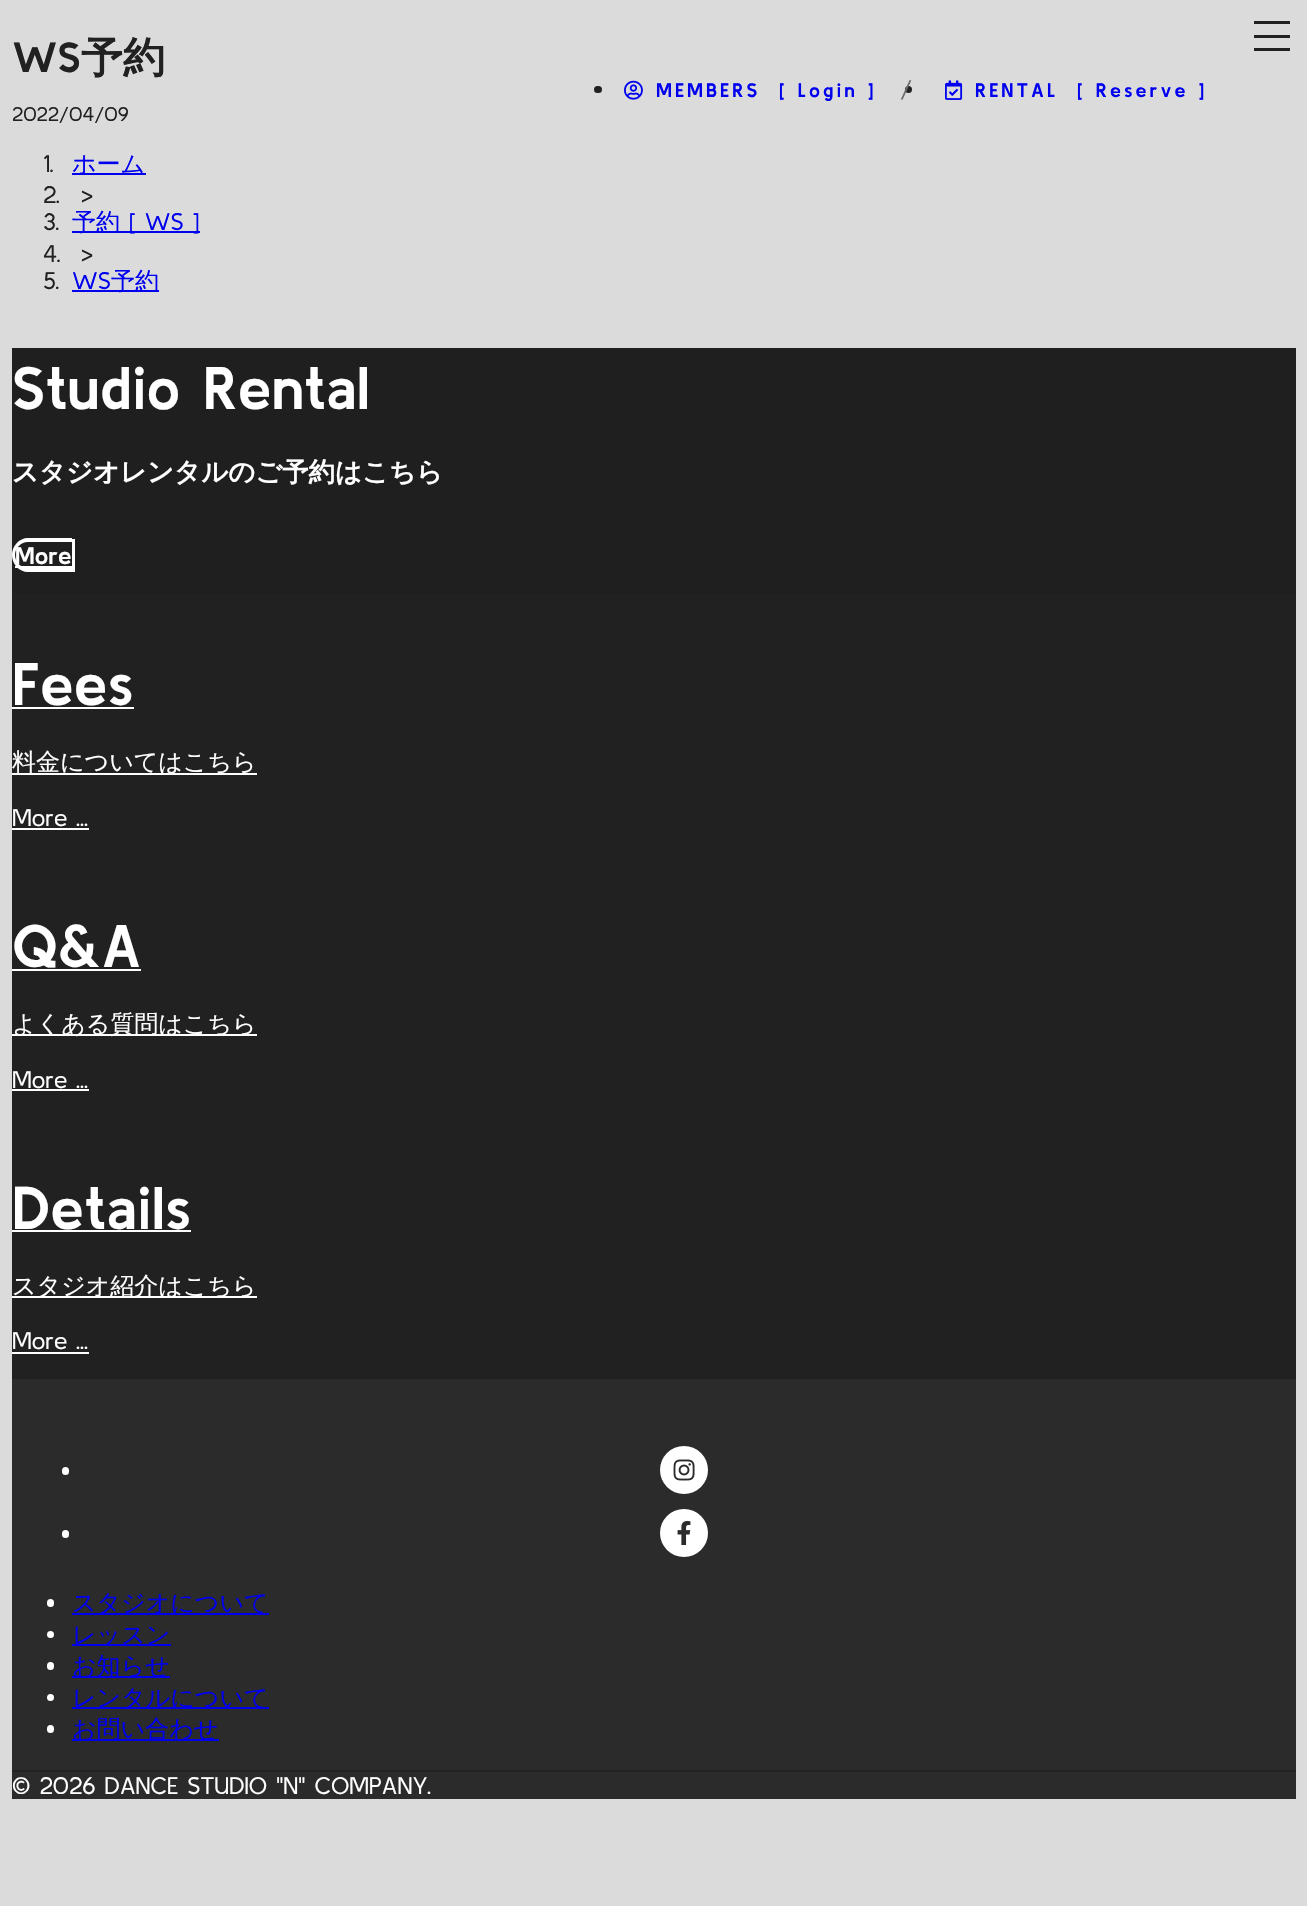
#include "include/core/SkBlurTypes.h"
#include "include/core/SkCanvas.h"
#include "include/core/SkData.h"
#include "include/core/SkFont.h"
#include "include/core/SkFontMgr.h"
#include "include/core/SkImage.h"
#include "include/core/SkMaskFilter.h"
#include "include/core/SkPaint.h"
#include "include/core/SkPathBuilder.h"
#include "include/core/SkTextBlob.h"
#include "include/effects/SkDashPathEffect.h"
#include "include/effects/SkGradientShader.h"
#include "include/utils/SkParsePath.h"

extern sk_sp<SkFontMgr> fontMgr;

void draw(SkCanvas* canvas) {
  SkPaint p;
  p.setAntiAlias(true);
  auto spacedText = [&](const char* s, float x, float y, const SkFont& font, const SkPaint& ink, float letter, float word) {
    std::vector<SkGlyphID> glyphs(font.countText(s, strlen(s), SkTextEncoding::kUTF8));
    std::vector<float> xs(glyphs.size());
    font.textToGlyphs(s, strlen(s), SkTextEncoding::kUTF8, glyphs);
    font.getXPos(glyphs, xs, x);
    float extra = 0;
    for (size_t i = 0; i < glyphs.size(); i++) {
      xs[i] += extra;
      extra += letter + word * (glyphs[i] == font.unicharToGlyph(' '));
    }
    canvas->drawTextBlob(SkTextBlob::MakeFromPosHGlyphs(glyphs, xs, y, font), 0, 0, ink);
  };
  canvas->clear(SkColorSetRGB(219, 219, 219));
  p.setColor(SkColorSetRGB(0, 0, 238));
  canvas->drawRect(SkRect::MakeLTRB(72, 173, 146, 175), p);
  canvas->drawRect(SkRect::MakeLTRB(72, 231, 200, 233), p);
  canvas->drawRect(SkRect::MakeLTRB(72, 290, 159, 292), p);
  p.setColor(SkColorSetRGB(33, 33, 33));
  canvas->drawRect(SkRect::MakeLTRB(1254, 21, 1290, 24), p);
  canvas->drawRect(SkRect::MakeLTRB(1254, 35, 1290, 38), p);
  canvas->drawRect(SkRect::MakeLTRB(1254, 48, 1290, 51), p);
  canvas->drawRoundRect(SkRect::MakeLTRB(594, 86, 602, 93), 3.5f, 3.5f, p);
  canvas->drawImageRect(SkImages::DeferredFromEncodedData(SkData::MakeFromFileName("images/1.png")), SkRect::MakeLTRB(624, 80, 643, 100), SkSamplingOptions());
  canvas->drawCircle(908.5f, 89.5f, 3.5f, p);
  canvas->drawImageRect(SkImages::DeferredFromEncodedData(SkData::MakeFromFileName("images/2.png")), SkRect::MakeLTRB(945, 80, 963, 100), SkSamplingOptions());
  canvas->drawRect(SkRect::MakeLTRB(12, 594, 1296, 1379), p);
  p.setColor(SkColorSetRGB(31, 31, 31));
  canvas->drawRect(SkRect::MakeLTRB(12, 348, 1296, 594), p);
  p.setColor(SK_ColorWHITE);
  canvas->drawPath(SkPathBuilder(SkPathFillType::kEvenOdd).moveTo(28, 538).lineTo(72, 538).lineTo(72, 572).lineTo(28, 572).cubicTo(19, 572, 12, 564, 12, 555).cubicTo(12, 546, 19, 538, 28, 538).close().moveTo(28, 542).lineTo(72, 542).lineTo(72, 568).lineTo(28, 568).cubicTo(21, 568, 15, 562, 15, 555).cubicTo(15, 548, 21, 542, 28, 542).close().detach(), p);
  canvas->drawRect(SkRect::MakeLTRB(72, 539, 75, 572), p);
  canvas->drawRect(SkRect::MakeLTRB(15, 566, 72, 568), p);
  canvas->drawRect(SkRect::MakeLTRB(12, 707, 134, 709), p);
  canvas->drawRect(SkRect::MakeLTRB(12, 773, 257, 775), p);
  canvas->drawRect(SkRect::MakeLTRB(12, 828, 89, 830), p);
  canvas->drawRect(SkRect::MakeLTRB(12, 969, 141, 971), p);
  canvas->drawRect(SkRect::MakeLTRB(12, 1034, 257, 1036), p);
  canvas->drawRect(SkRect::MakeLTRB(12, 1089, 89, 1091), p);
  canvas->drawRect(SkRect::MakeLTRB(12, 1230, 191, 1232), p);
  canvas->drawRect(SkRect::MakeLTRB(12, 1296, 257, 1298), p);
  canvas->drawRect(SkRect::MakeLTRB(12, 1352, 89, 1354), p);
  p.setColor(SkColorSetRGB(43, 43, 43));
  canvas->drawRect(SkRect::MakeLTRB(12, 1379, 1296, 1799), p);
  p.setColor(SK_ColorWHITE);
  canvas->drawRoundRect(SkRect::MakeLTRB(62, 1467, 69, 1475), 3.5f, 3.5f, p);
  canvas->drawCircle(684, 1470, 24, p);
  canvas->drawImageRect(SkImages::DeferredFromEncodedData(SkData::MakeFromFileName("images/3.png")), SkRect::MakeLTRB(673, 1459, 695, 1481), SkSamplingOptions());
  canvas->drawRoundRect(SkRect::MakeLTRB(62, 1530, 69, 1538), 3.5f, 3.5f, p);
  canvas->drawCircle(684, 1533, 24, p);
  canvas->drawImageRect(SkImages::DeferredFromEncodedData(SkData::MakeFromFileName("images/4.png")), SkRect::MakeLTRB(677, 1521, 691, 1545), SkSamplingOptions());
  canvas->drawRoundRect(SkRect::MakeLTRB(47, 1599, 54, 1607), 3.5f, 3.5f, p);
  p.setColor(SkColorSetRGB(0, 0, 238));
  canvas->drawRect(SkRect::MakeLTRB(72, 1613, 269, 1615), p);
  p.setColor(SK_ColorWHITE);
  canvas->drawCircle(50.5f, 1634.5f, 3.5f, p);
  p.setColor(SkColorSetRGB(0, 0, 238));
  canvas->drawRect(SkRect::MakeLTRB(72, 1644, 171, 1646), p);
  p.setColor(SK_ColorWHITE);
  canvas->drawRoundRect(SkRect::MakeLTRB(47, 1662, 54, 1670), 3.5f, 3.5f, p);
  p.setColor(SkColorSetRGB(0, 0, 238));
  canvas->drawRect(SkRect::MakeLTRB(72, 1676, 170, 1678), p);
  p.setColor(SK_ColorWHITE);
  canvas->drawCircle(50.5f, 1697.5f, 3.5f, p);
  p.setColor(SkColorSetRGB(0, 0, 238));
  canvas->drawRect(SkRect::MakeLTRB(72, 1707, 269, 1709), p);
  p.setColor(SK_ColorWHITE);
  canvas->drawRoundRect(SkRect::MakeLTRB(47, 1725, 54, 1733), 3.5f, 3.5f, p);
  p.setColor(SkColorSetRGB(0, 0, 238));
  canvas->drawRect(SkRect::MakeLTRB(72, 1739, 219, 1741), p);
  p.setColor(SkColorSetRGB(34, 34, 34));
  canvas->drawRect(SkRect::MakeLTRB(12, 1770, 1296, 1772), p);
  SkFont font1(fontMgr->matchFamilyStyle("Kulim Park", SkFontStyle::Bold()), 42);
  font1.setSubpixel(true);
  p.setColor(SkColorSetRGB(33, 33, 33));
  canvas->drawString("WS", 12, 72, font1, p);
  SkFont font2(fontMgr->matchFamilyStyle("WenQuanYi Zen Hei", SkFontStyle::Bold()), 42);
  font2.setSubpixel(true);
  canvas->drawString("予約", 81, 72, font2, p);
  SkFont font3(fontMgr->matchFamilyStyle("Kulim Park", SkFontStyle::Normal()), 20);
  font3.setSubpixel(true);
  canvas->drawString("2022/04/09", 12, 121, font3, p);
  SkFont font4(fontMgr->matchFamilyStyle("Kulim Park", SkFontStyle::Normal()), 24);
  font4.setSubpixel(true);
  canvas->drawString("1.", 43, 172, font4, p);
  SkFont font5(fontMgr->matchFamilyStyle("WenQuanYi Zen Hei", SkFontStyle(500, SkFontStyle::kNormal_Width, SkFontStyle::kUpright_Slant)), 24);
  font5.setSubpixel(true);
  p.setColor(SkColorSetRGB(0, 0, 238));
  canvas->drawString("ホーム", 72, 172, font5, p);
  p.setColor(SkColorSetRGB(33, 33, 33));
  canvas->drawString("2.", 43, 203, font4, p);
  canvas->drawString(">", 81, 203, font4, p);
  canvas->drawString("3.", 43, 230, font4, p);
  p.setColor(SkColorSetRGB(0, 0, 238));
  canvas->drawString("予約", 72, 230, font5, p);
  canvas->drawString("[ WS ]", 129, 230, font4, p);
  p.setColor(SkColorSetRGB(33, 33, 33));
  canvas->drawString("4.", 43, 262, font4, p);
  canvas->drawString(">", 81, 262, font4, p);
  canvas->drawString("5.", 43, 289, font4, p);
  p.setColor(SkColorSetRGB(0, 0, 238));
  canvas->drawString("WS", 72, 289, font4, p);
  canvas->drawString("予約", 111, 289, font5, p);
  SkFont font6(fontMgr->matchFamilyStyle("Kulim Park", SkFontStyle::Bold()), 19.5f);
  font6.setSubpixel(true);
  spacedText("MEMBERS", 656, 97, font6, p, 3, 0);
  spacedText("[ Login ]", 779, 97, font6, p, 3, 0);
  p.setColor(SkColorSetRGB(108, 108, 108));
  canvas->drawString("/", 900, 97, font4, p);
  p.setColor(SkColorSetRGB(0, 0, 238));
  spacedText("RENTAL", 975, 97, font6, p, 3, 0);
  spacedText("[ Reserve ]", 1077, 97, font6, p, 3, 0);
  SkFont font7(fontMgr->matchFamilyStyle("Kulim Park", SkFontStyle::Bold()), 60);
  font7.setSubpixel(true);
  p.setColor(SK_ColorWHITE);
  canvas->drawString("Studio Rental", 12, 409, font7, p);
  SkFont font8(fontMgr->matchFamilyStyle("WenQuanYi Zen Hei", SkFontStyle::Bold()), 26.4f);
  font8.setSubpixel(true);
  canvas->drawString("スタジオレンタルのご予約はこちら", 12, 481, font8, p);
  SkFont font9(fontMgr->matchFamilyStyle("Kulim Park", SkFontStyle::Bold()), 24);
  font9.setSubpixel(true);
  canvas->drawString("More", 15, 564, font9, p);
  canvas->drawString("Fees", 12, 705, font7, p);
  canvas->drawString("料金についてはこちら", 12, 770, font5, p);
  canvas->drawString("More ...", 12, 826, font4, p);
  canvas->drawString("Q&A", 12, 967, font7, p);
  canvas->drawString("よくある質問はこちら", 12, 1032, font5, p);
  canvas->drawString("More ...", 12, 1088, font4, p);
  canvas->drawString("Details", 12, 1229, font7, p);
  canvas->drawString("スタジオ紹介はこちら", 12, 1294, font5, p);
  canvas->drawString("More ...", 12, 1349, font4, p);
  p.setColor(SkColorSetRGB(0, 0, 238));
  canvas->drawString("スタジオについて", 72, 1611, font5, p);
  canvas->drawString("レッスン", 72, 1643, font5, p);
  canvas->drawString("お知らせ", 72, 1674, font5, p);
  canvas->drawString("レンタルについて", 72, 1706, font5, p);
  canvas->drawString("お問い合わせ", 72, 1737, font5, p);
  p.setColor(SK_ColorWHITE);
  canvas->drawString("© 2026 DANCE STUDIO \"N\" COMPANY.", 12, 1794, font4, p);
}
